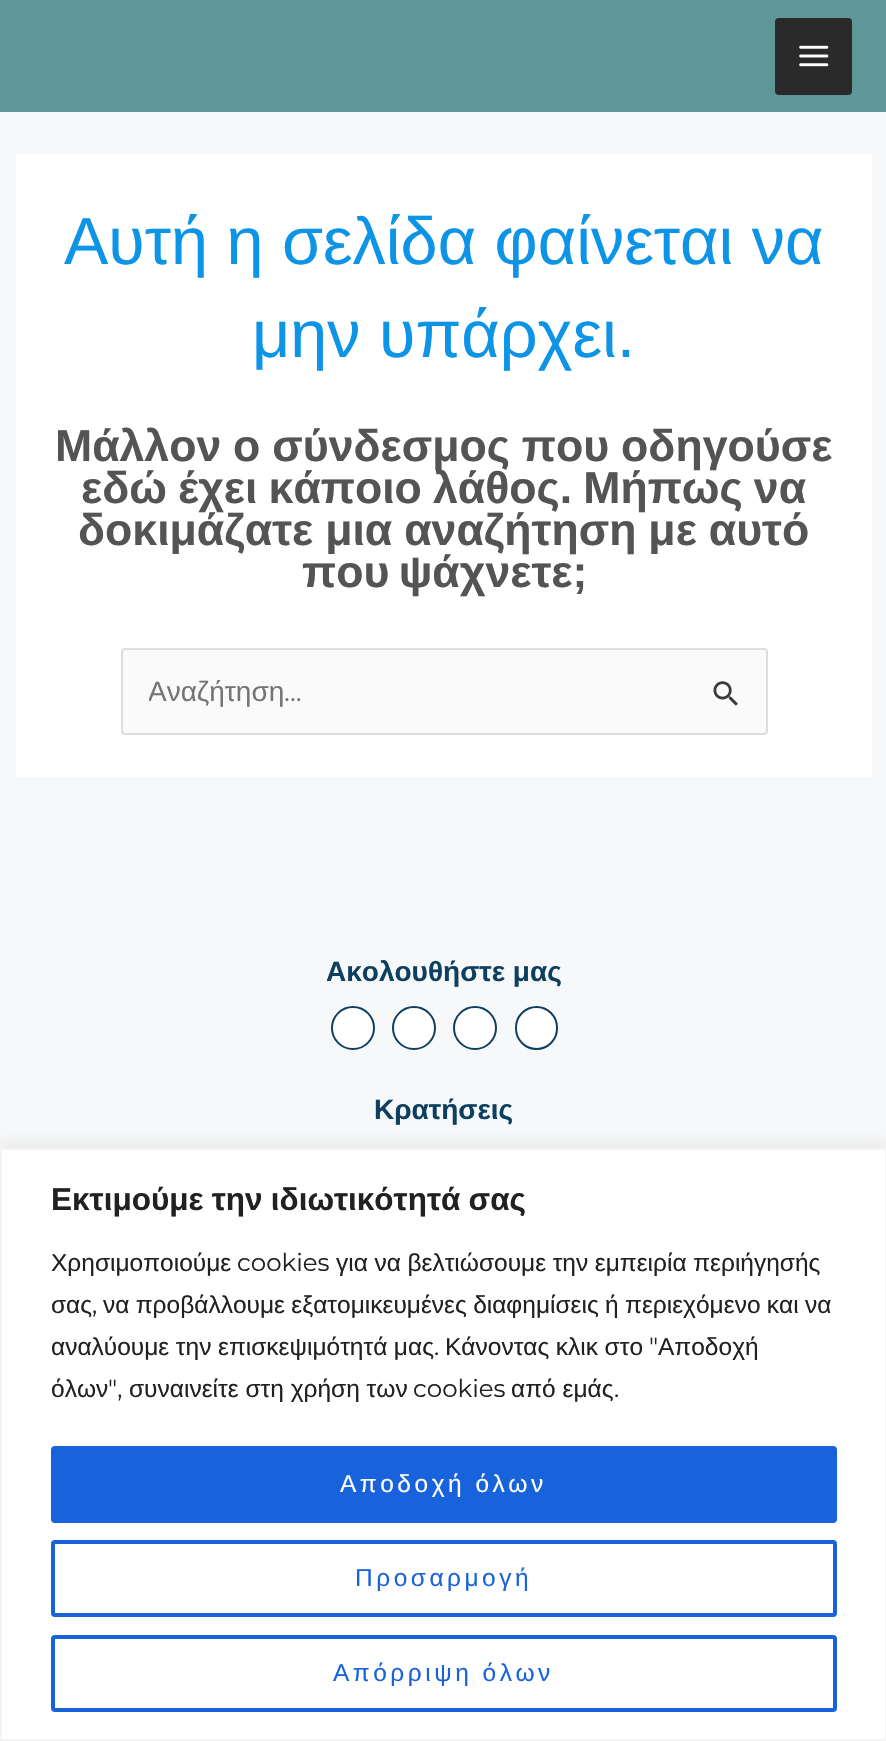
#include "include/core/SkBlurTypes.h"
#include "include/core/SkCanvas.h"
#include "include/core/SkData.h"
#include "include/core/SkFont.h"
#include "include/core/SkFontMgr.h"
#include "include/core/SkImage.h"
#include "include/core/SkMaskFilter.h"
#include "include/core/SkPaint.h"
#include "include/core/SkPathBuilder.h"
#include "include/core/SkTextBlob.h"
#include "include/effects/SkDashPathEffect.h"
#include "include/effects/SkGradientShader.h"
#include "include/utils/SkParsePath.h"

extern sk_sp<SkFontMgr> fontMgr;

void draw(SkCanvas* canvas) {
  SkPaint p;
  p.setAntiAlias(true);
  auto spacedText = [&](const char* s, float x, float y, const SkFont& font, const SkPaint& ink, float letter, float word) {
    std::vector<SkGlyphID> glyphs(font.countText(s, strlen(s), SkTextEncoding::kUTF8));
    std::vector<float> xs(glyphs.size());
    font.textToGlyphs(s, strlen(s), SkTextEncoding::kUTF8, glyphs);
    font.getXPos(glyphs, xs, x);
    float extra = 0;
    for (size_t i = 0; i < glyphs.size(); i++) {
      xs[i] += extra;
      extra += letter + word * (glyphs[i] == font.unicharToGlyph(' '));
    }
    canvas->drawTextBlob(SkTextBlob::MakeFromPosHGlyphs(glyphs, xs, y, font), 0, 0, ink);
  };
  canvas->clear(SkColorSetRGB(247, 248, 249));
  p.setColor(SkColorSetRGB(95, 151, 152));
  canvas->drawRect(SkRect::MakeLTRB(0, 0, 886, 112), p);
  p.setColor(SkColorSetRGB(42, 42, 42));
  canvas->drawRoundRect(SkRect::MakeLTRB(775, 18, 852, 95), 4, 4, p);
  canvas->drawImageRect(SkImages::DeferredFromEncodedData(SkData::MakeFromFileName("images/1.png")), SkRect::MakeLTRB(799, 45, 829, 67), SkSamplingOptions());
  p.setColor(SK_ColorWHITE);
  canvas->drawRect(SkRect::MakeLTRB(16, 154, 872, 777), p);
  p.setColor(SkColorSetRGB(250, 250, 250));
  canvas->drawRoundRect(SkRect::MakeLTRB(122, 649, 767, 734), 3, 3, p);
  p.setStyle(SkPaint::kStroke_Style);
  p.setStrokeWidth(2);
  p.setColor(SkColorSetRGB(221, 221, 221));
  canvas->drawRoundRect(SkRect::MakeLTRB(122, 649, 767, 734), 3, 3, p);
  canvas->drawImageRect(SkImages::DeferredFromEncodedData(SkData::MakeFromFileName("images/2.png")), SkRect::MakeLTRB(713, 681, 738, 706), SkSamplingOptions());
  p.setStyle(SkPaint::kFill_Style);
  p.setColor(SK_ColorWHITE);
  canvas->drawCircle(353, 1028, 21, p);
  p.setStyle(SkPaint::kStroke_Style);
  p.setColor(SkColorSetRGB(13, 64, 96));
  canvas->drawCircle(353, 1028, 21, p);
  p.setStyle(SkPaint::kFill_Style);
  p.setColor(SK_ColorWHITE);
  canvas->drawCircle(414, 1028, 21, p);
  p.setStyle(SkPaint::kStroke_Style);
  p.setColor(SkColorSetRGB(13, 64, 96));
  canvas->drawCircle(414, 1028, 21, p);
  p.setStyle(SkPaint::kFill_Style);
  p.setColor(SK_ColorWHITE);
  canvas->drawCircle(475, 1028, 21, p);
  p.setStyle(SkPaint::kStroke_Style);
  p.setColor(SkColorSetRGB(13, 64, 96));
  canvas->drawCircle(475, 1028, 21, p);
  p.setStyle(SkPaint::kFill_Style);
  p.setColor(SK_ColorWHITE);
  canvas->drawRoundRect(SkRect::MakeLTRB(516, 1007, 557, 1049), 20.5f, 20.5f, p);
  p.setStyle(SkPaint::kStroke_Style);
  p.setColor(SkColorSetRGB(13, 64, 96));
  canvas->drawRoundRect(SkRect::MakeLTRB(516, 1007, 557, 1049), 20.5f, 20.5f, p);
  p.setStyle(SkPaint::kFill_Style);
  p.setColor(SkColorSetARGB(77, 172, 171, 171));
  p.setMaskFilter(SkMaskFilter::MakeBlur(kNormal_SkBlurStyle, 9));
  canvas->drawRect(SkRect::MakeLTRB(0, 1146, 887, 1740), p);
  p.setMaskFilter(nullptr);
  p.setColor(SK_ColorWHITE);
  canvas->drawRect(SkRect::MakeLTRB(1, 1149, 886, 1740), p);
  p.setStyle(SkPaint::kStroke_Style);
  p.setColor(SkColorSetRGB(244, 244, 244));
  canvas->drawRect(SkRect::MakeLTRB(1, 1149, 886, 1740), p);
  p.setStyle(SkPaint::kFill_Style);
  p.setColor(SkColorSetRGB(24, 99, 220));
  canvas->drawRoundRect(SkRect::MakeLTRB(53, 1448, 835, 1521), 2, 2, p);
  p.setStyle(SkPaint::kStroke_Style);
  p.setStrokeWidth(4);
  canvas->drawRoundRect(SkRect::MakeLTRB(53, 1448, 835, 1521), 2, 2, p);
  canvas->drawRoundRect(SkRect::MakeLTRB(53, 1542, 835, 1615), 2, 2, p);
  canvas->drawRoundRect(SkRect::MakeLTRB(53, 1637, 835, 1710), 2, 2, p);
  SkFont font1(fontMgr->matchFamilyStyle("Liberation Sans", SkFontStyle::Normal()), 66.5f);
  font1.setSubpixel(true);
  p.setStyle(SkPaint::kFill_Style);
  p.setColor(SkColorSetRGB(13, 148, 231));
  canvas->drawString("Αυτή η σελίδα φαίνεται να", 64, 264, font1, p);
  canvas->drawString("μην υπάρχει.", 252, 357, font1, p);
  SkFont font2(fontMgr->matchFamilyStyle("Liberation Sans", SkFontStyle::Bold()), 44.6f);
  font2.setSubpixel(true);
  p.setColor(SkColorSetRGB(84, 84, 84));
  spacedText("Μάλλον ο σύνδεσμος που οδηγούσε", 55, 461, font2, p, 0, -0.5f);
  spacedText("εδώ έχει κάποιο λάθος. Μήπως να", 81, 503, font2, p, 0, -1.25f);
  spacedText("δοκιμάζατε μια αναζήτηση με αυτό", 78, 545, font2, p, 0, -0.5f);
  spacedText("που ψάχνετε;", 302, 587, font2, p, 0, -3);
  canvas->save();
  canvas->clipRect(SkRect::MakeLTRB(149, 674, 681, 707));
  SkFont font3(fontMgr->matchFamilyStyle("Liberation Sans", SkFontStyle::Normal()), 28);
  font3.setSubpixel(true);
  p.setColor(SkColorSetRGB(117, 117, 117));
  canvas->drawString("Αναζήτηση", 148, 701, font3, p);
  canvas->restore();
  SkFont font4(fontMgr->matchFamilyStyle("Montserrat", SkFontStyle(100, SkFontStyle::kNormal_Width, SkFontStyle::kUpright_Slant)), 28);
  font4.setSubpixel(true);
  canvas->drawString("...", 284, 701, font4, p);
  SkFont font5(fontMgr->matchFamilyStyle("Liberation Sans", SkFontStyle::Bold()), 28);
  font5.setSubpixel(true);
  p.setColor(SkColorSetRGB(13, 64, 96));
  canvas->drawString("Ακολουθήστε μας", 326, 981, font5, p);
  canvas->drawString("Κρατήσεις", 374, 1119, font5, p);
  SkFont font6(fontMgr->matchFamilyStyle("Liberation Sans", SkFontStyle::Bold()), 31.5f);
  font6.setSubpixel(true);
  p.setColor(SkColorSetRGB(33, 33, 33));
  spacedText("Εκτιμούμε την ιδιωτικότητά σας", 51, 1210, font6, p, 0, -0.5f);
  SkFont font7(fontMgr->matchFamilyStyle("Liberation Sans", SkFontStyle::Normal()), 24.5f);
  font7.setSubpixel(true);
  canvas->drawString("Χρησιμοποιούμε", 51, 1271, font7, p);
  SkFont font8(fontMgr->matchFamilyStyle("Montserrat", SkFontStyle(100, SkFontStyle::kNormal_Width, SkFontStyle::kUpright_Slant)), 24.5f);
  font8.setSubpixel(true);
  canvas->drawString("cookies", 237, 1271, font8, p);
  spacedText("για να βελτιώσουμε την εμπειρία περιήγησής", 336, 1271, font7, p, 0, -0.25f);
  canvas->drawString("σας", 51, 1313, font7, p);
  canvas->drawString(",", 92, 1313, font8, p);
  spacedText("να προβάλλουμε εξατομικευμένες διαφημίσεις ή περιεχόμενο και να", 103, 1313, font7, p, 0, -0.5f);
  spacedText("αναλύουμε την επισκεψιμότητά μας", 51, 1355, font7, p, 0, -0.25f);
  spacedText("Κάνοντας κλικ στο", 445, 1355, font7, p, 0, -0.25f);
  canvas->drawString("\"", 649, 1355, font8, p);
  canvas->drawString("Αποδοχή", 658, 1355, font7, p);
  canvas->drawString(".", 434, 1355, font8, p);
  canvas->drawString("όλων", 51, 1397, font7, p);
  canvas->drawString("\",", 108, 1397, font8, p);
  canvas->drawString("συναινείτε στη χρήση των", 129, 1397, font7, p);
  canvas->drawString("cookies", 413, 1397, font8, p);
  canvas->drawString("από εμάς", 511, 1397, font7, p);
  canvas->drawString(".", 614, 1397, font8, p);
  p.setColor(SK_ColorWHITE);
  spacedText("Αποδοχή όλων", 340, 1492, font7, p, 3.5f, 0);
  p.setColor(SkColorSetRGB(24, 99, 220));
  spacedText("Προσαρμογή", 355, 1586, font7, p, 3.5f, 0);
  spacedText("Απόρριψη όλων", 333, 1681, font7, p, 3.5f, 0);
}
